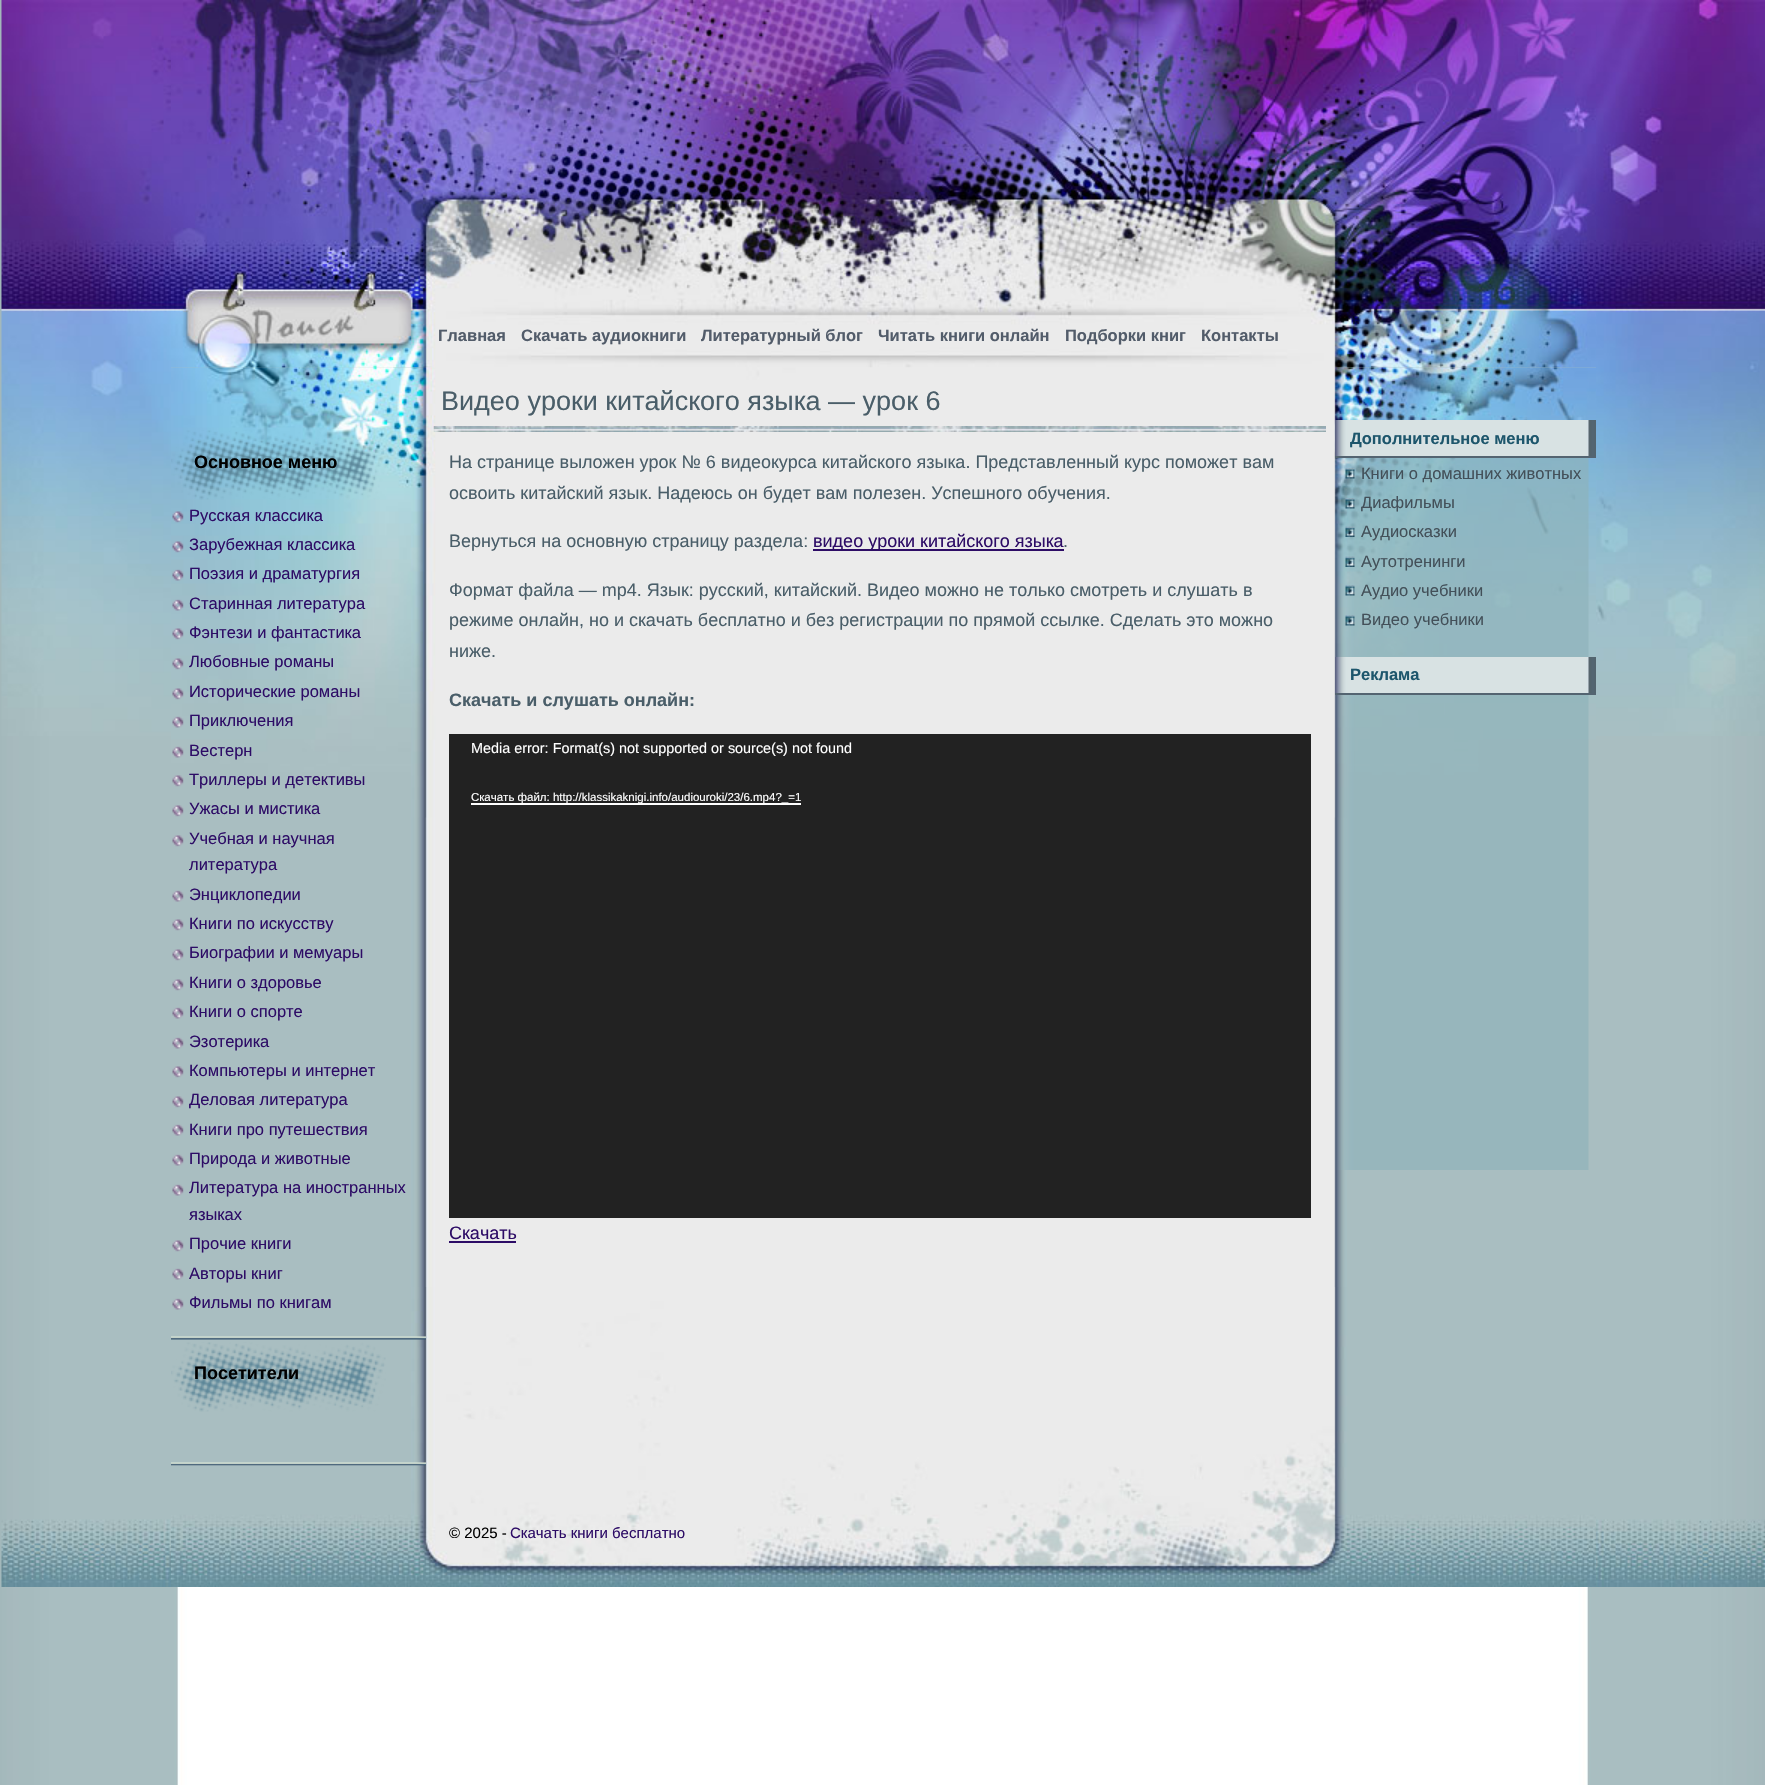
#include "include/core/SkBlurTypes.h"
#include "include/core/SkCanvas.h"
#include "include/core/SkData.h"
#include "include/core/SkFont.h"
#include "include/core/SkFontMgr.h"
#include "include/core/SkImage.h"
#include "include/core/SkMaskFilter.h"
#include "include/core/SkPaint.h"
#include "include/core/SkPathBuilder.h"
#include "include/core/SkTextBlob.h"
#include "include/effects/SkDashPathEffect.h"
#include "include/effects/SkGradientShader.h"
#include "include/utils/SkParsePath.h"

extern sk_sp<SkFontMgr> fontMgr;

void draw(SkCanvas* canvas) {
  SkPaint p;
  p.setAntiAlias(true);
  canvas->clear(SK_ColorWHITE);
  canvas->drawImageRect(SkImages::DeferredFromEncodedData(SkData::MakeFromFileName("images/1.png")), SkRect::MakeLTRB(0, 0, 1765, 1785), SkSamplingOptions());
  canvas->drawImageRect(SkImages::DeferredFromEncodedData(SkData::MakeFromFileName("images/2.png")), SkRect::MakeLTRB(1, 0, 1765, 736), SkSamplingOptions());
  canvas->drawImageRect(SkImages::DeferredFromEncodedData(SkData::MakeFromFileName("images/3.png")), SkRect::MakeLTRB(1, 1519, 1765, 1587), SkSamplingOptions());
  canvas->drawImageRect(SkImages::DeferredFromEncodedData(SkData::MakeFromFileName("images/4.png")), SkRect::MakeLTRB(171, 367, 1596, 1287), SkSamplingOptions());
  canvas->drawImageRect(SkImages::DeferredFromEncodedData(SkData::MakeFromFileName("images/5.png")), SkRect::MakeLTRB(171, 1287, 1596, 1587), SkSamplingOptions());
  canvas->drawImageRect(SkImages::DeferredFromEncodedData(SkData::MakeFromFileName("images/6.png")), SkRect::MakeLTRB(171, 0, 1596, 368), SkSamplingOptions());
  canvas->drawImageRect(SkImages::DeferredFromEncodedData(SkData::MakeFromFileName("images/7.png")), SkRect::MakeLTRB(198, 307, 393, 368), SkSamplingOptions());
  canvas->drawImageRect(SkImages::DeferredFromEncodedData(SkData::MakeFromFileName("images/8.png")), SkRect::MakeLTRB(171, 367, 1596, 818), SkSamplingOptions());
  canvas->drawImageRect(SkImages::DeferredFromEncodedData(SkData::MakeFromFileName("images/9.png")), SkRect::MakeLTRB(171, 1336, 426, 1340), SkSamplingOptions());
  canvas->drawImageRect(SkImages::DeferredFromEncodedData(SkData::MakeFromFileName("images/10.png")), SkRect::MakeLTRB(171, 430, 386, 500), SkSamplingOptions());
  canvas->drawImageRect(SkImages::DeferredFromEncodedData(SkData::MakeFromFileName("images/11.png")), SkRect::MakeLTRB(172, 511, 184, 523), SkSamplingOptions());
  canvas->drawImageRect(SkImages::DeferredFromEncodedData(SkData::MakeFromFileName("images/12.png")), SkRect::MakeLTRB(172, 541, 184, 553), SkSamplingOptions());
  canvas->drawImageRect(SkImages::DeferredFromEncodedData(SkData::MakeFromFileName("images/13.png")), SkRect::MakeLTRB(172, 569, 184, 581), SkSamplingOptions());
  canvas->drawImageRect(SkImages::DeferredFromEncodedData(SkData::MakeFromFileName("images/14.png")), SkRect::MakeLTRB(172, 599, 184, 611), SkSamplingOptions());
  canvas->drawImageRect(SkImages::DeferredFromEncodedData(SkData::MakeFromFileName("images/15.png")), SkRect::MakeLTRB(172, 628, 184, 640), SkSamplingOptions());
  canvas->drawImageRect(SkImages::DeferredFromEncodedData(SkData::MakeFromFileName("images/16.png")), SkRect::MakeLTRB(172, 658, 184, 670), SkSamplingOptions());
  canvas->drawImageRect(SkImages::DeferredFromEncodedData(SkData::MakeFromFileName("images/17.png")), SkRect::MakeLTRB(172, 688, 184, 700), SkSamplingOptions());
  canvas->drawImageRect(SkImages::DeferredFromEncodedData(SkData::MakeFromFileName("images/18.png")), SkRect::MakeLTRB(172, 716, 184, 728), SkSamplingOptions());
  canvas->drawImageRect(SkImages::DeferredFromEncodedData(SkData::MakeFromFileName("images/19.png")), SkRect::MakeLTRB(172, 746, 184, 758), SkSamplingOptions());
  canvas->drawImageRect(SkImages::DeferredFromEncodedData(SkData::MakeFromFileName("images/20.png")), SkRect::MakeLTRB(172, 775, 184, 787), SkSamplingOptions());
  canvas->drawImageRect(SkImages::DeferredFromEncodedData(SkData::MakeFromFileName("images/20.png")), SkRect::MakeLTRB(172, 805, 184, 817), SkSamplingOptions());
  canvas->drawImageRect(SkImages::DeferredFromEncodedData(SkData::MakeFromFileName("images/20.png")), SkRect::MakeLTRB(172, 835, 184, 847), SkSamplingOptions());
  canvas->drawImageRect(SkImages::DeferredFromEncodedData(SkData::MakeFromFileName("images/21.png")), SkRect::MakeLTRB(172, 890, 184, 902), SkSamplingOptions());
  canvas->drawImageRect(SkImages::DeferredFromEncodedData(SkData::MakeFromFileName("images/20.png")), SkRect::MakeLTRB(172, 919, 184, 931), SkSamplingOptions());
  canvas->drawImageRect(SkImages::DeferredFromEncodedData(SkData::MakeFromFileName("images/20.png")), SkRect::MakeLTRB(172, 949, 184, 961), SkSamplingOptions());
  canvas->drawImageRect(SkImages::DeferredFromEncodedData(SkData::MakeFromFileName("images/20.png")), SkRect::MakeLTRB(172, 979, 184, 991), SkSamplingOptions());
  canvas->drawImageRect(SkImages::DeferredFromEncodedData(SkData::MakeFromFileName("images/21.png")), SkRect::MakeLTRB(172, 1007, 184, 1019), SkSamplingOptions());
  canvas->drawImageRect(SkImages::DeferredFromEncodedData(SkData::MakeFromFileName("images/21.png")), SkRect::MakeLTRB(172, 1037, 184, 1049), SkSamplingOptions());
  canvas->drawImageRect(SkImages::DeferredFromEncodedData(SkData::MakeFromFileName("images/20.png")), SkRect::MakeLTRB(172, 1066, 184, 1078), SkSamplingOptions());
  canvas->drawImageRect(SkImages::DeferredFromEncodedData(SkData::MakeFromFileName("images/20.png")), SkRect::MakeLTRB(172, 1096, 184, 1108), SkSamplingOptions());
  canvas->drawImageRect(SkImages::DeferredFromEncodedData(SkData::MakeFromFileName("images/21.png")), SkRect::MakeLTRB(172, 1124, 184, 1136), SkSamplingOptions());
  canvas->drawImageRect(SkImages::DeferredFromEncodedData(SkData::MakeFromFileName("images/21.png")), SkRect::MakeLTRB(172, 1154, 184, 1166), SkSamplingOptions());
  canvas->drawImageRect(SkImages::DeferredFromEncodedData(SkData::MakeFromFileName("images/21.png")), SkRect::MakeLTRB(172, 1184, 184, 1196), SkSamplingOptions());
  canvas->drawImageRect(SkImages::DeferredFromEncodedData(SkData::MakeFromFileName("images/20.png")), SkRect::MakeLTRB(172, 1240, 184, 1252), SkSamplingOptions());
  canvas->drawImageRect(SkImages::DeferredFromEncodedData(SkData::MakeFromFileName("images/21.png")), SkRect::MakeLTRB(172, 1268, 184, 1280), SkSamplingOptions());
  canvas->drawImageRect(SkImages::DeferredFromEncodedData(SkData::MakeFromFileName("images/21.png")), SkRect::MakeLTRB(172, 1298, 184, 1310), SkSamplingOptions());
  canvas->drawImageRect(SkImages::DeferredFromEncodedData(SkData::MakeFromFileName("images/22.png")), SkRect::MakeLTRB(171, 1462, 426, 1466), SkSamplingOptions());
  canvas->drawImageRect(SkImages::DeferredFromEncodedData(SkData::MakeFromFileName("images/23.png")), SkRect::MakeLTRB(171, 1342, 386, 1412), SkSamplingOptions());
  canvas->drawImageRect(SkImages::DeferredFromEncodedData(SkData::MakeFromFileName("images/24.png")), SkRect::MakeLTRB(433, 426, 1326, 432), SkSamplingOptions());
  p.setColor(SkColorSetRGB(45, 12, 102));
  canvas->drawRect(SkRect::MakeLTRB(813, 549, 1064, 551), p);
  p.setColor(SkColorSetRGB(34, 34, 34));
  canvas->drawRect(SkRect::MakeLTRB(449, 734, 1311, 1218), p);
  p.setColor(SK_ColorWHITE);
  canvas->drawRect(SkRect::MakeLTRB(471, 803, 801, 805), p);
  p.setColor(SkColorSetRGB(45, 12, 102));
  canvas->drawRect(SkRect::MakeLTRB(449, 1241, 516, 1243), p);
  canvas->drawImageRect(SkImages::DeferredFromEncodedData(SkData::MakeFromFileName("images/25.png")), SkRect::MakeLTRB(1335, 458, 1589, 1170), SkSamplingOptions());
  canvas->drawImageRect(SkImages::DeferredFromEncodedData(SkData::MakeFromFileName("images/26.png")), SkRect::MakeLTRB(1335, 420, 1596, 456), SkSamplingOptions());
  p.setColor(SkColorSetRGB(84, 100, 113));
  canvas->drawRect(SkRect::MakeLTRB(1335, 456, 1596, 458), p);
  canvas->drawImageRect(SkImages::DeferredFromEncodedData(SkData::MakeFromFileName("images/27.png")), SkRect::MakeLTRB(1345, 468, 1355, 479), SkSamplingOptions());
  canvas->drawImageRect(SkImages::DeferredFromEncodedData(SkData::MakeFromFileName("images/28.png")), SkRect::MakeLTRB(1345, 498, 1355, 509), SkSamplingOptions());
  canvas->drawImageRect(SkImages::DeferredFromEncodedData(SkData::MakeFromFileName("images/29.png")), SkRect::MakeLTRB(1345, 526, 1355, 537), SkSamplingOptions());
  canvas->drawImageRect(SkImages::DeferredFromEncodedData(SkData::MakeFromFileName("images/30.png")), SkRect::MakeLTRB(1345, 556, 1355, 567), SkSamplingOptions());
  canvas->drawImageRect(SkImages::DeferredFromEncodedData(SkData::MakeFromFileName("images/31.png")), SkRect::MakeLTRB(1345, 585, 1355, 596), SkSamplingOptions());
  canvas->drawImageRect(SkImages::DeferredFromEncodedData(SkData::MakeFromFileName("images/32.png")), SkRect::MakeLTRB(1345, 615, 1355, 626), SkSamplingOptions());
  canvas->drawImageRect(SkImages::DeferredFromEncodedData(SkData::MakeFromFileName("images/26.png")), SkRect::MakeLTRB(1335, 657, 1596, 693), SkSamplingOptions());
  canvas->drawRect(SkRect::MakeLTRB(1335, 693, 1596, 695), p);
  SkFont font1(fontMgr->matchFamilyStyle("Liberation Sans", SkFontStyle::Bold()), 16.5f);
  font1.setSubpixel(true);
  p.setColor(SkColorSetRGB(82, 92, 106));
  canvas->drawString("Главная", 438, 341, font1, p);
  canvas->drawString("Скачать аудиокниги", 521, 341, font1, p);
  canvas->drawString("Литературный блог", 701, 341, font1, p);
  canvas->drawString("Читать книги онлайн", 878, 341, font1, p);
  canvas->drawString("Подборки книг", 1065, 341, font1, p);
  canvas->drawString("Контакты", 1201, 341, font1, p);
  SkFont font2(fontMgr->matchFamilyStyle("Liberation Sans", SkFontStyle::Bold()), 18);
  font2.setSubpixel(true);
  p.setColor(SK_ColorBLACK);
  canvas->drawString("Основное меню", 194, 468, font2, p);
  SkFont font3(fontMgr->matchFamilyStyle("Liberation Sans", SkFontStyle::Normal()), 16.5f);
  font3.setSubpixel(true);
  p.setColor(SkColorSetRGB(45, 12, 102));
  canvas->drawString("Русская классика", 189, 521, font3, p);
  canvas->drawString("Зарубежная классика", 189, 550, font3, p);
  canvas->drawString("Поэзия и драматургия", 189, 579, font3, p);
  canvas->drawString("Старинная литература", 189, 609, font3, p);
  canvas->drawString("Фэнтези и фантастика", 189, 638, font3, p);
  canvas->drawString("Любовные романы", 189, 667, font3, p);
  canvas->drawString("Исторические романы", 189, 697, font3, p);
  canvas->drawString("Приключения", 189, 726, font3, p);
  canvas->drawString("Вестерн", 189, 756, font3, p);
  canvas->drawString("Триллеры и детективы", 189, 785, font3, p);
  canvas->drawString("Ужасы и мистика", 189, 814, font3, p);
  canvas->drawString("Учебная и научная", 189, 844, font3, p);
  canvas->drawString("литература", 189, 870, font3, p);
  canvas->drawString("Энциклопедии", 189, 900, font3, p);
  canvas->drawString("Книги по искусству", 189, 929, font3, p);
  canvas->drawString("Биографии и мемуары", 189, 958, font3, p);
  canvas->drawString("Книги о здоровье", 189, 988, font3, p);
  canvas->drawString("Книги о спорте", 189, 1017, font3, p);
  canvas->drawString("Эзотерика", 189, 1047, font3, p);
  canvas->drawString("Компьютеры и интернет", 189, 1076, font3, p);
  canvas->drawString("Деловая литература", 189, 1105, font3, p);
  canvas->drawString("Книги про путешествия", 189, 1135, font3, p);
  canvas->drawString("Природа и животные", 189, 1164, font3, p);
  canvas->drawString("Литература на иностранных", 189, 1193, font3, p);
  canvas->drawString("языках", 189, 1220, font3, p);
  canvas->drawString("Прочие книги", 189, 1249, font3, p);
  canvas->drawString("Авторы книг", 189, 1279, font3, p);
  canvas->drawString("Фильмы по книгам", 189, 1308, font3, p);
  p.setColor(SK_ColorBLACK);
  canvas->drawString("Посетители", 194, 1379, font2, p);
  SkFont font4(fontMgr->matchFamilyStyle("Liberation Sans", SkFontStyle::Normal()), 27);
  font4.setSubpixel(true);
  p.setColor(SkColorSetRGB(74, 94, 105));
  canvas->drawString("Видео уроки китайского языка — урок 6", 441, 410, font4, p);
  SkFont font5(fontMgr->matchFamilyStyle("Liberation Sans", SkFontStyle::Normal()), 18);
  font5.setSubpixel(true);
  canvas->drawString("На странице выложен урок № 6 видеокурса китайского языка. Представленный курс поможет вам", 449, 468, font5, p);
  canvas->drawString("освоить китайский язык. Надеюсь он будет вам полезен. Успешного обучения.", 449, 499, font5, p);
  canvas->drawString("Вернуться на основную страницу раздела:", 449, 547, font5, p);
  p.setColor(SkColorSetRGB(45, 12, 102));
  canvas->drawString("видео уроки китайского языка", 813, 547, font5, p);
  p.setColor(SkColorSetRGB(74, 94, 105));
  canvas->drawString(".", 1063, 547, font5, p);
  canvas->drawString("Формат файла — mp4. Язык: русский, китайский. Видео можно не только смотреть и слушать в", 449, 596, font5, p);
  canvas->drawString("режиме онлайн, но и скачать бесплатно и без регистрации по прямой ссылке. Сделать это можно", 449, 626, font5, p);
  canvas->drawString("ниже.", 449, 657, font5, p);
  canvas->drawString("Скачать и слушать онлайн:", 449, 706, font2, p);
  SkFont font6(fontMgr->matchFamilyStyle("Liberation Sans", SkFontStyle::Normal()), 14.4f);
  font6.setSubpixel(true);
  p.setColor(SK_ColorWHITE);
  canvas->drawString("Media error: Format(s) not supported or source(s) not found", 471, 753, font6, p);
  SkFont font7(fontMgr->matchFamilyStyle("Liberation Sans", SkFontStyle::Normal()), 11.5f);
  font7.setSubpixel(true);
  canvas->drawString("Скачать файл: http://klassikaknigi.info/audiouroki/23/6.mp4?_=1", 471, 801, font7, p);
  p.setColor(SkColorSetRGB(45, 12, 102));
  canvas->drawString("Скачать", 449, 1239, font5, p);
  p.setColor(SkColorSetRGB(29, 86, 108));
  canvas->drawString("Дополнительное меню", 1350, 444, font1, p);
  p.setColor(SkColorSetRGB(67, 80, 89));
  canvas->drawString("Книги о домашних животных", 1361, 479, font3, p);
  canvas->drawString("Диафильмы", 1361, 508, font3, p);
  canvas->drawString("Аудиосказки", 1361, 537, font3, p);
  canvas->drawString("Аутотренинги", 1361, 567, font3, p);
  canvas->drawString("Аудио учебники", 1361, 596, font3, p);
  canvas->drawString("Видео учебники", 1361, 625, font3, p);
  p.setColor(SkColorSetRGB(29, 86, 108));
  canvas->drawString("Реклама", 1350, 680, font1, p);
  canvas->save();
  canvas->clipRect(SkRect::MakeLTRB(449, 1526, 1311, 1587));
  SkFont font8(fontMgr->matchFamilyStyle("Liberation Sans", SkFontStyle::Normal()), 15);
  font8.setSubpixel(true);
  p.setColor(SK_ColorBLACK);
  canvas->drawString("© 2025 -", 449, 1538, font8, p);
  canvas->restore();
  p.setColor(SkColorSetRGB(45, 12, 102));
  canvas->drawString("Скачать книги бесплатно", 510, 1538, font8, p);
}
